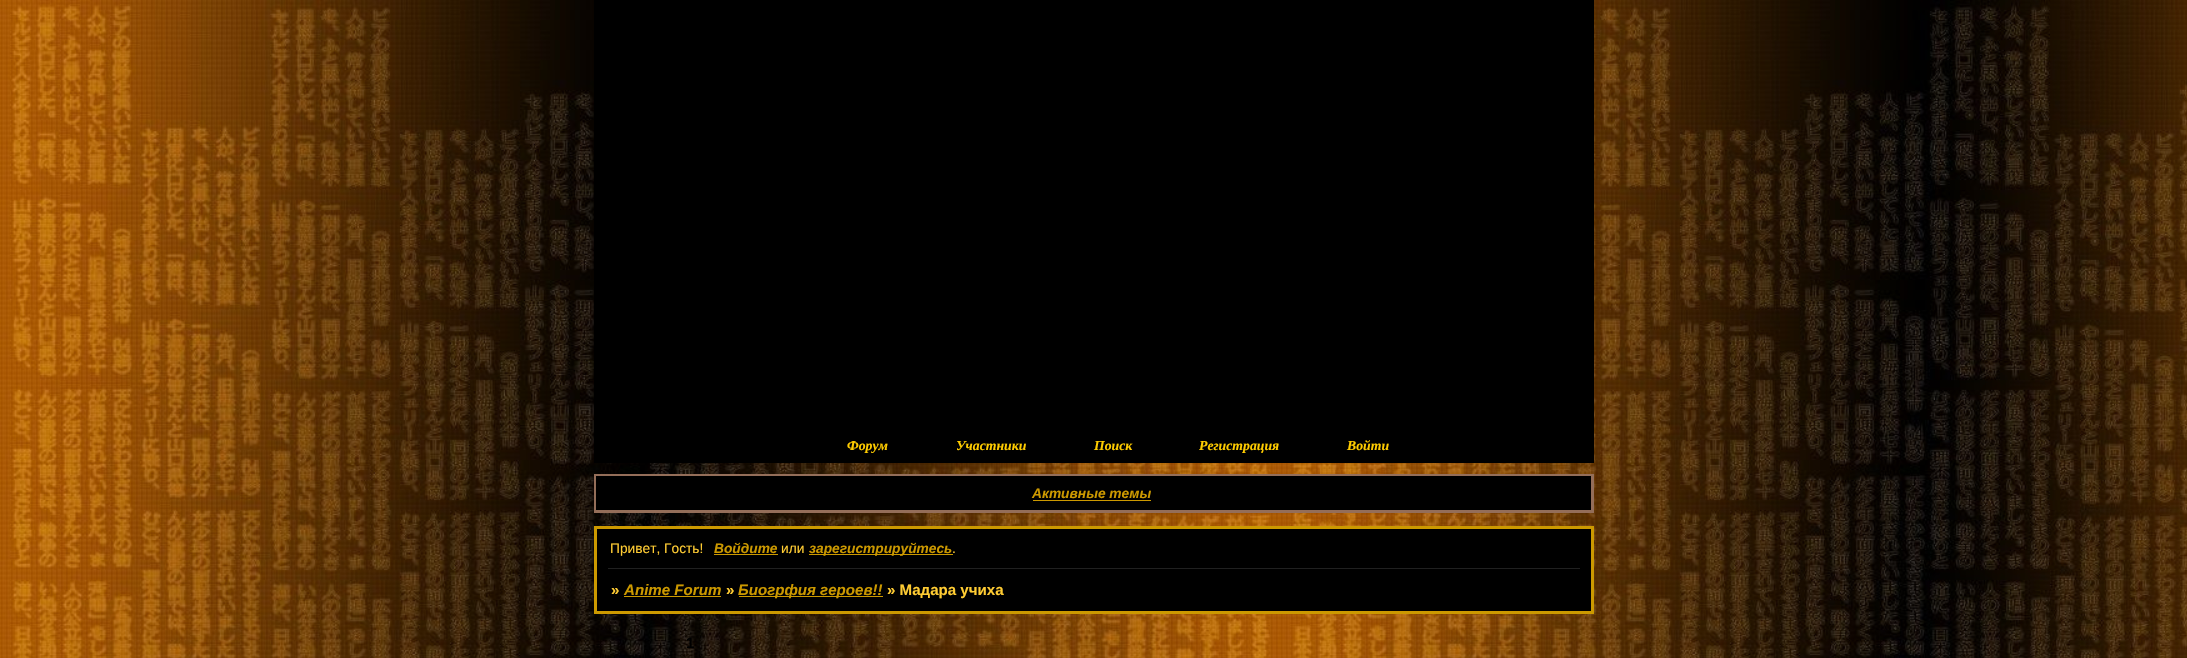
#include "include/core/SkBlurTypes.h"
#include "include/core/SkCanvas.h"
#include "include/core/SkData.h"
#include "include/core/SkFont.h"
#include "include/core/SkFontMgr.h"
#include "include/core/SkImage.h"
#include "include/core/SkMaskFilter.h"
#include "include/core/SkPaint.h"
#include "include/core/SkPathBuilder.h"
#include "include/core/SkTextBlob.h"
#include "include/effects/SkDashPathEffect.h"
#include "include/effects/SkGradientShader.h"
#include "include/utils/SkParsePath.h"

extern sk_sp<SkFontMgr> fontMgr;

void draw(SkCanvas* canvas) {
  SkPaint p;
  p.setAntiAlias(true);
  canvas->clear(SK_ColorWHITE);
  canvas->drawImageRect(SkImages::DeferredFromEncodedData(SkData::MakeFromFileName("images/1.png")), SkRect::MakeLTRB(0, 0, 2187, 658), SkSamplingOptions());
  p.setColor(SK_ColorBLACK);
  canvas->drawRect(SkRect::MakeLTRB(594, 0, 1594, 463), p);
  p.setStyle(SkPaint::kStroke_Style);
  p.setStrokeWidth(3);
  p.setColor(SkColorSetRGB(148, 110, 89));
  canvas->drawRect(SkRect::MakeLTRB(595.5f, 475.5f, 1592.5f, 511.5f), p);
  p.setStyle(SkPaint::kFill_Style);
  p.setColor(SK_ColorBLACK);
  canvas->drawRect(SkRect::MakeLTRB(596, 476, 1591, 510), p);
  p.setColor(SkColorSetRGB(204, 153, 0));
  canvas->drawRect(SkRect::MakeLTRB(1033, 500, 1151, 501), p);
  p.setColor(SK_ColorBLACK);
  canvas->drawRect(SkRect::MakeLTRB(597, 529, 1591, 611), p);
  p.setColor(SkColorSetRGB(204, 153, 0));
  canvas->drawRect(SkRect::MakeLTRB(594, 526, 1594, 529), p);
  canvas->drawRect(SkRect::MakeLTRB(1591, 526, 1594, 614), p);
  canvas->drawRect(SkRect::MakeLTRB(594, 526, 597, 569), p);
  canvas->drawRect(SkRect::MakeLTRB(714, 554, 778, 555), p);
  canvas->drawRect(SkRect::MakeLTRB(809, 554, 953, 555), p);
  p.setColor(SkColorSetRGB(32, 32, 32));
  canvas->drawRect(SkRect::MakeLTRB(608, 568, 1580, 569), p);
  p.setColor(SkColorSetRGB(204, 153, 0));
  canvas->drawRect(SkRect::MakeLTRB(594, 611, 1594, 614), p);
  canvas->drawRect(SkRect::MakeLTRB(594, 566, 597, 614), p);
  canvas->drawRect(SkRect::MakeLTRB(624, 596, 721, 597), p);
  canvas->drawRect(SkRect::MakeLTRB(739, 596, 883, 597), p);
  SkFont font1(fontMgr->matchFamilyStyle("Liberation Serif", SkFontStyle::BoldItalic()), 13.75f);
  font1.setSubpixel(true);
  p.setColor(SkColorSetRGB(255, 204, 0));
  canvas->drawString("Форум", 847, 450, font1, p);
  canvas->drawString("Участники", 956, 450, font1, p);
  canvas->drawString("Поиск", 1094, 450, font1, p);
  canvas->drawString("Регистрация", 1199, 450, font1, p);
  canvas->drawString("Войти", 1347, 450, font1, p);
  SkFont font2(fontMgr->matchFamilyStyle("Liberation Sans", SkFontStyle::BoldItalic()), 13.75f);
  font2.setSubpixel(true);
  p.setColor(SkColorSetRGB(204, 153, 0));
  canvas->drawString("Активные темы", 1032, 498, font2, p);
  SkFont font3(fontMgr->matchFamilyStyle("Liberation Sans", SkFontStyle::Normal()), 13.75f);
  font3.setSubpixel(true);
  p.setColor(SkColorSetRGB(255, 204, 51));
  canvas->drawString("Привет, Гость!", 610, 553, font3, p);
  p.setColor(SkColorSetRGB(204, 153, 0));
  canvas->drawString("Войдите", 714, 553, font2, p);
  p.setColor(SkColorSetRGB(255, 204, 51));
  canvas->drawString("или", 781, 553, font3, p);
  p.setColor(SkColorSetRGB(204, 153, 0));
  canvas->drawString("зарегистрируйтесь", 809, 553, font2, p);
  p.setColor(SkColorSetRGB(255, 204, 51));
  canvas->drawString(".", 952, 553, font3, p);
  SkFont font4(fontMgr->matchFamilyStyle("Liberation Sans", SkFontStyle::Bold()), 15.1f);
  font4.setSubpixel(true);
  canvas->drawString("»", 611, 595, font4, p);
  SkFont font5(fontMgr->matchFamilyStyle("Liberation Sans", SkFontStyle::BoldItalic()), 15.1f);
  font5.setSubpixel(true);
  p.setColor(SkColorSetRGB(204, 153, 0));
  canvas->drawString("Anime Forum", 624, 595, font5, p);
  p.setColor(SkColorSetRGB(255, 204, 51));
  canvas->drawString("»", 726, 595, font4, p);
  p.setColor(SkColorSetRGB(204, 153, 0));
  canvas->drawString("Биогрфия героев!!", 738, 595, font5, p);
  p.setColor(SkColorSetRGB(255, 204, 51));
  canvas->drawString("» Мадара учиха", 887, 595, font4, p);
  p.setColor(SK_ColorBLACK);
  canvas->drawString("1", 686, 648, font4, p);
}
